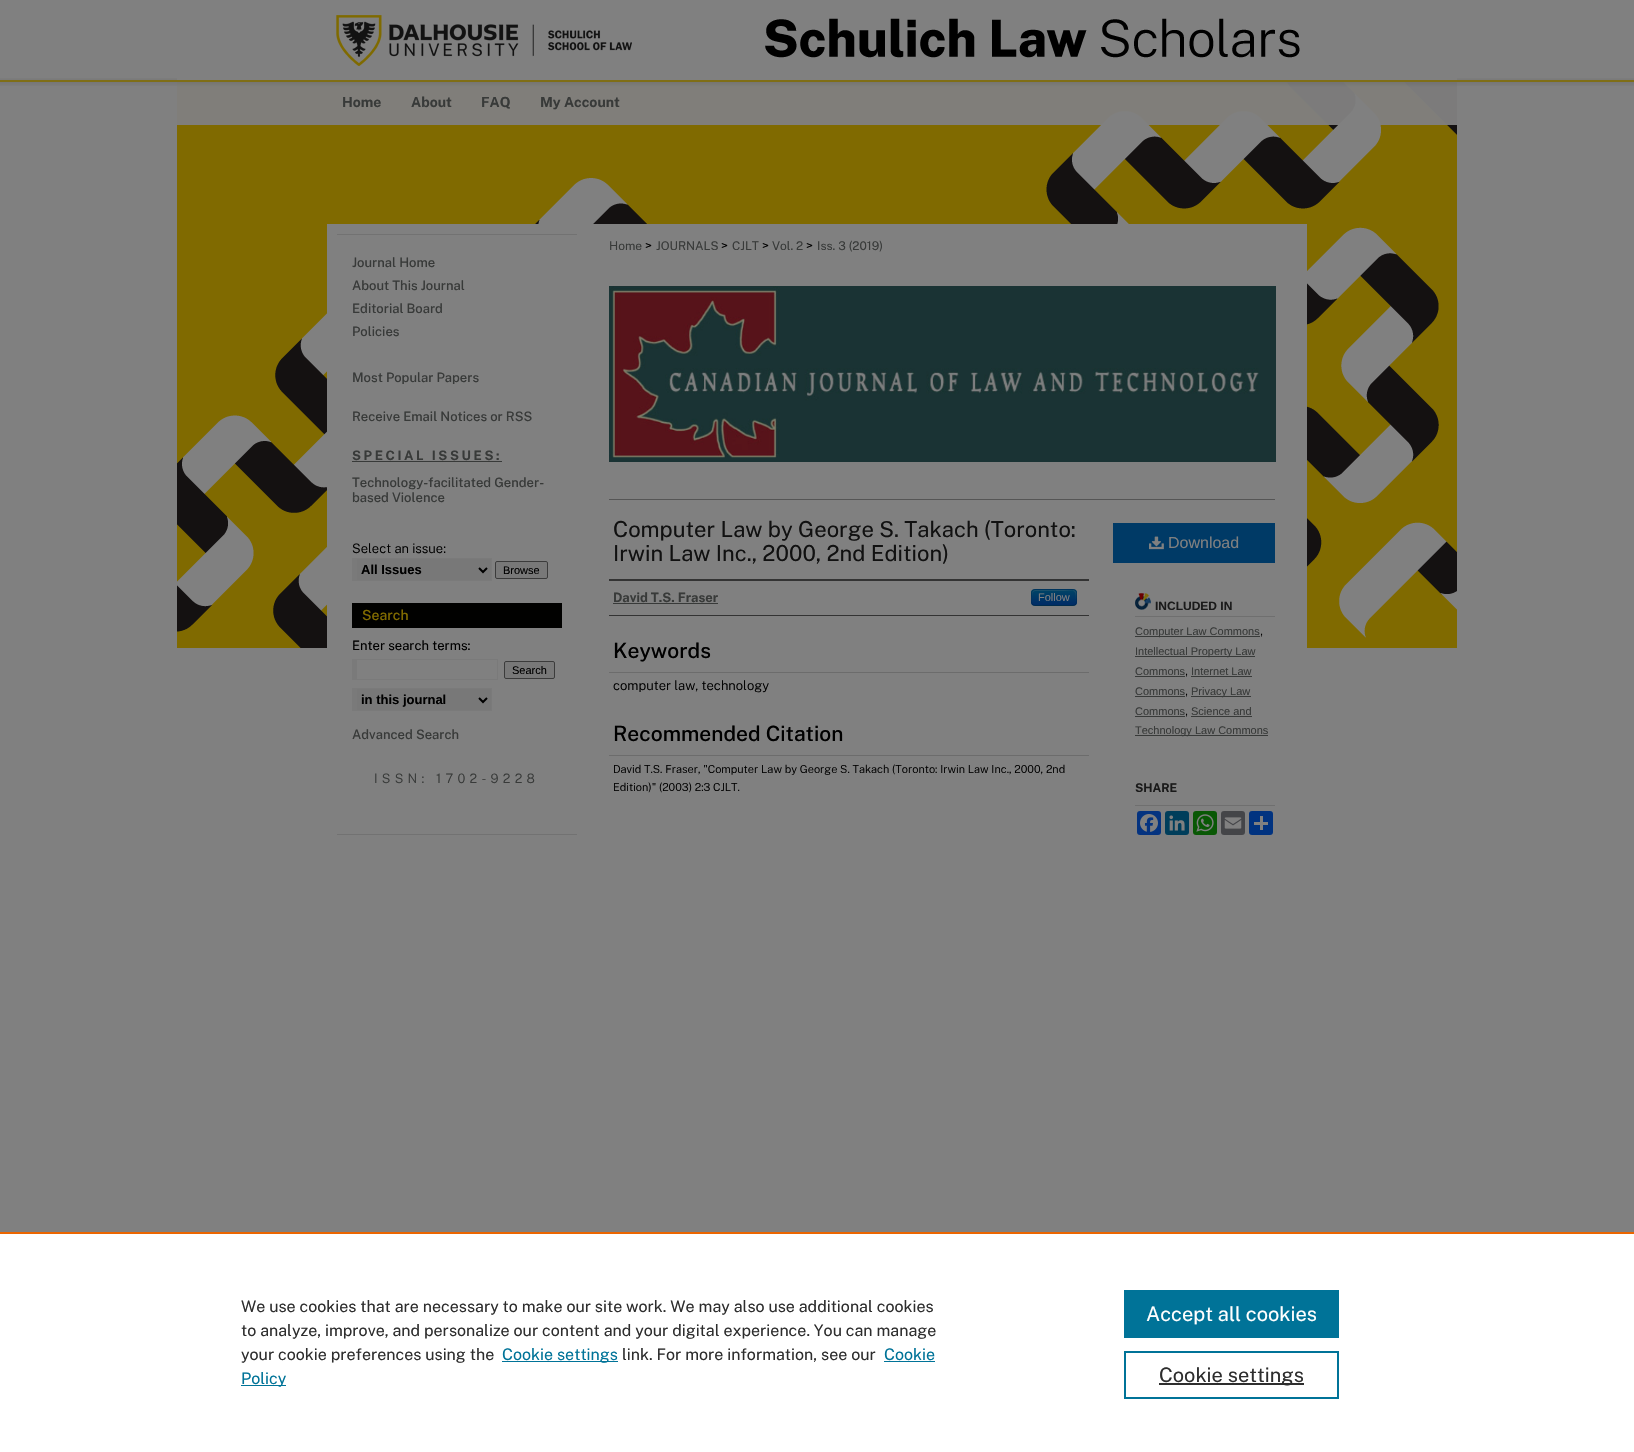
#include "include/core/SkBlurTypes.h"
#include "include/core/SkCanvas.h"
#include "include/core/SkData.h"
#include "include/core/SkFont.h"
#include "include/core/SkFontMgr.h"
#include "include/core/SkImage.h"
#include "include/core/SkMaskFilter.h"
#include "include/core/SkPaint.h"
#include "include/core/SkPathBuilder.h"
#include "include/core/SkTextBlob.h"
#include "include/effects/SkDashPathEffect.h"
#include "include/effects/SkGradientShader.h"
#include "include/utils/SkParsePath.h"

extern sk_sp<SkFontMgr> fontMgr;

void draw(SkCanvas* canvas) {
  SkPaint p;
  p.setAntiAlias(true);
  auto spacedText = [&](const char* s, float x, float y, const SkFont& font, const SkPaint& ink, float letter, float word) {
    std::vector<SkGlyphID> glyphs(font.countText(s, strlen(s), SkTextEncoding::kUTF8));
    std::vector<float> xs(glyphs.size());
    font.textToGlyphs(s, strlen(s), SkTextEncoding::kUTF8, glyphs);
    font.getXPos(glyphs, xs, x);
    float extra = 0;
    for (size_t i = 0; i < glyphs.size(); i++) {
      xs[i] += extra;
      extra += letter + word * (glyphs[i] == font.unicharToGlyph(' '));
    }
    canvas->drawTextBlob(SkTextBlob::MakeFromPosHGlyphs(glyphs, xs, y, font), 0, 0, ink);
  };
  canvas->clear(SkColorSetRGB(128, 128, 128));
  canvas->drawImageRect(SkImages::DeferredFromEncodedData(SkData::MakeFromFileName("images/1.png")), SkRect::MakeLTRB(0, 78, 1634, 86), SkSamplingOptions());
  canvas->drawImageRect(SkImages::DeferredFromEncodedData(SkData::MakeFromFileName("images/2.png")), SkRect::MakeLTRB(177, 78, 1457, 648), SkSamplingOptions());
  canvas->drawImageRect(SkImages::DeferredFromEncodedData(SkData::MakeFromFileName("images/3.png")), SkRect::MakeLTRB(336, 15, 1300, 66), SkSamplingOptions());
  p.setColor(SkColorSetRGB(128, 128, 128));
  canvas->drawRect(SkRect::MakeLTRB(327, 224, 1307, 648), p);
  p.setColor(SkColorSetRGB(114, 114, 114));
  canvas->drawRect(SkRect::MakeLTRB(337, 234, 577, 235), p);
  canvas->drawRect(SkRect::MakeLTRB(337, 834, 577, 835), p);
  p.setColor(SkColorSetRGB(56, 58, 57));
  canvas->drawRect(SkRect::MakeLTRB(352, 461, 502, 462), p);
  p.setColor(SkColorSetRGB(120, 120, 120));
  canvas->drawRect(SkRect::MakeLTRB(357, 559, 491, 580), p);
  p.setColor(SkColorSetRGB(122, 122, 122));
  canvas->drawRect(SkRect::MakeLTRB(352, 558, 492, 559), p);
  canvas->drawRect(SkRect::MakeLTRB(491, 558, 492, 581), p);
  canvas->drawRect(SkRect::MakeLTRB(352, 580, 492, 581), p);
  canvas->drawRect(SkRect::MakeLTRB(352, 558, 357, 581), p);
  p.setStyle(SkPaint::kStroke_Style);
  p.setStrokeWidth(2);
  p.setColor(SK_ColorBLACK);
  canvas->drawPath(SkPathBuilder().moveTo(479, 568).lineTo(483, 572).lineTo(487, 568).detach(), p);
  p.setStyle(SkPaint::kFill_Style);
  p.setColor(SkColorSetRGB(120, 120, 120));
  canvas->drawRoundRect(SkRect::MakeLTRB(495.5f, 561.5f, 547.5f, 578.5f), 1.5f, 1.5f, p);
  p.setStyle(SkPaint::kStroke_Style);
  p.setStrokeWidth(1);
  p.setColor(SkColorSetRGB(59, 59, 59));
  canvas->drawRoundRect(SkRect::MakeLTRB(495.5f, 561.5f, 547.5f, 578.5f), 1.5f, 1.5f, p);
  p.setStyle(SkPaint::kFill_Style);
  p.setColor(SkColorSetRGB(1, 1, 0));
  canvas->drawRect(SkRect::MakeLTRB(352, 603, 562, 628), p);
  p.setColor(SkColorSetRGB(122, 122, 122));
  canvas->drawRect(SkRect::MakeLTRB(352, 659, 498, 660), p);
  canvas->drawRect(SkRect::MakeLTRB(497, 659, 498, 680), p);
  canvas->drawRect(SkRect::MakeLTRB(352, 679, 498, 680), p);
  canvas->drawRect(SkRect::MakeLTRB(352, 659, 357, 680), p);
  p.setColor(SkColorSetRGB(120, 120, 120));
  canvas->drawRoundRect(SkRect::MakeLTRB(504.5f, 661.5f, 554.5f, 678.5f), 1.5f, 1.5f, p);
  p.setStyle(SkPaint::kStroke_Style);
  p.setColor(SkColorSetRGB(59, 59, 59));
  canvas->drawRoundRect(SkRect::MakeLTRB(504.5f, 661.5f, 554.5f, 678.5f), 1.5f, 1.5f, p);
  p.setStyle(SkPaint::kFill_Style);
  p.setColor(SkColorSetRGB(120, 120, 120));
  canvas->drawRect(SkRect::MakeLTRB(357, 689, 491, 710), p);
  p.setColor(SkColorSetRGB(122, 122, 122));
  canvas->drawRect(SkRect::MakeLTRB(352, 688, 492, 689), p);
  canvas->drawRect(SkRect::MakeLTRB(491, 688, 492, 711), p);
  canvas->drawRect(SkRect::MakeLTRB(352, 710, 492, 711), p);
  canvas->drawRect(SkRect::MakeLTRB(352, 688, 357, 711), p);
  p.setStyle(SkPaint::kStroke_Style);
  p.setStrokeWidth(2);
  p.setColor(SK_ColorBLACK);
  canvas->drawPath(SkPathBuilder().moveTo(479, 698).lineTo(483, 702).lineTo(487, 698).detach(), p);
  canvas->drawImageRect(SkImages::DeferredFromEncodedData(SkData::MakeFromFileName("images/4.png")), SkRect::MakeLTRB(609, 286, 1276, 462), SkSamplingOptions());
  p.setStyle(SkPaint::kFill_Style);
  p.setColor(SkColorSetRGB(85, 85, 85));
  canvas->drawRect(SkRect::MakeLTRB(609, 499, 1275, 500), p);
  p.setColor(SkColorSetRGB(51, 51, 51));
  canvas->drawRect(SkRect::MakeLTRB(609, 579, 1089, 581), p);
  canvas->drawRect(SkRect::MakeLTRB(609, 615, 1089, 616), p);
  p.setColor(SkColorSetRGB(56, 58, 57));
  canvas->drawRect(SkRect::MakeLTRB(613, 603, 718, 604), p);
  p.setColor(SkColorSetRGB(0, 58, 102));
  canvas->drawRoundRect(SkRect::MakeLTRB(1031, 589, 1077, 606), 4, 4, p);
  canvas->save();
  canvas->clipPath(SkPathBuilder().moveTo(1035, 589).lineTo(1073, 589).cubicTo(1075, 589, 1077, 591, 1077, 593).lineTo(1077, 602).cubicTo(1077, 604, 1075, 606, 1073, 606).lineTo(1035, 606).cubicTo(1033, 606, 1031, 604, 1031, 602).lineTo(1031, 593).cubicTo(1031, 591, 1033, 589, 1035, 589).close().detach(), true);
  {
    const SkColor colors[] = {SkColorSetRGB(0, 68, 102), SkColorSetRGB(0, 43, 102)};
    const float stops[] = {0, 1};
    const SkPoint ends[] = {{1054, 590}, {1054, 605}};
    p.setShader(SkGradientShader::MakeLinear(ends, colors, stops, 2, SkTileMode::kClamp));
    p.setAlpha(255);
  }
  canvas->drawRect(SkRect::MakeLTRB(1031, 590, 1077, 605), p);
  canvas->restore();
  p.setShader(nullptr);
  p.setColor(SkColorSetARGB(51, 128, 128, 128));
  canvas->drawPath(SkPathBuilder().moveTo(1035, 591).lineTo(1060, 591).cubicTo(1074, 591, 1076, 587, 1076, 602).cubicTo(1076, 591, 1079, 590, 1067, 590).lineTo(1041, 590).cubicTo(1034, 590, 1032, 589, 1032, 596).lineTo(1032, 603).cubicTo(1032, 600, 1031, 591, 1035, 591).close().detach(), p);
  p.setStyle(SkPaint::kStroke_Style);
  p.setStrokeWidth(1);
  p.setColor(SkColorSetARGB(64, 0, 0, 0));
  canvas->drawPath(SkPathBuilder().moveTo(1075.5f, 604.5f).cubicTo(1075, 605, 1074, 605.5f, 1073, 605.5f).lineTo(1035, 605.5f).cubicTo(1034, 605.5f, 1033, 605, 1032.5f, 604.5f).detach(), p);
  p.setColor(SkColorSetARGB(26, 0, 0, 0));
  canvas->drawPath(SkPathBuilder().moveTo(1032.5f, 604.5f).cubicTo(1031, 602.5f, 1031.5f, 599.5f, 1031.5f, 597.5f).cubicTo(1031.5f, 588.5f, 1032, 589.5f, 1041.5f, 589.5f).lineTo(1066.5f, 589.5f).cubicTo(1076, 589.5f, 1076.5f, 588.5f, 1076.5f, 597.5f).cubicTo(1076.5f, 599.5f, 1077, 602.5f, 1075.5f, 604.5f).detach(), p);
  p.setStyle(SkPaint::kFill_Style);
  p.setColor(SkColorSetRGB(108, 108, 108));
  canvas->drawRect(SkRect::MakeLTRB(609, 672, 1089, 673), p);
  canvas->drawRect(SkRect::MakeLTRB(609, 755, 1089, 756), p);
  p.setColor(SkColorSetRGB(0, 58, 102));
  canvas->drawRect(SkRect::MakeLTRB(1113, 523, 1275, 563), p);
  canvas->drawImageRect(SkImages::DeferredFromEncodedData(SkData::MakeFromFileName("images/5.png")), SkRect::MakeLTRB(1149, 536, 1164, 550), SkSamplingOptions());
  canvas->drawImageRect(SkImages::DeferredFromEncodedData(SkData::MakeFromFileName("images/6.png")), SkRect::MakeLTRB(1135, 593, 1151, 610), SkSamplingOptions());
  p.setColor(SkColorSetRGB(111, 111, 111));
  canvas->drawRect(SkRect::MakeLTRB(1135, 616, 1275, 617), p);
  p.setColor(SkColorSetRGB(56, 58, 57));
  canvas->drawRect(SkRect::MakeLTRB(1135, 636, 1260, 637), p);
  canvas->drawRect(SkRect::MakeLTRB(1135, 656, 1255, 657), p);
  canvas->drawRect(SkRect::MakeLTRB(1135, 676, 1185, 677), p);
  canvas->drawRect(SkRect::MakeLTRB(1191, 676, 1252, 677), p);
  canvas->drawRect(SkRect::MakeLTRB(1135, 696, 1185, 697), p);
  canvas->drawRect(SkRect::MakeLTRB(1191, 696, 1251, 697), p);
  canvas->drawRect(SkRect::MakeLTRB(1135, 716, 1185, 717), p);
  canvas->drawRect(SkRect::MakeLTRB(1191, 716, 1252, 717), p);
  canvas->drawRect(SkRect::MakeLTRB(1135, 735, 1268, 736), p);
  p.setColor(SkColorSetRGB(111, 111, 111));
  canvas->drawRect(SkRect::MakeLTRB(1135, 805, 1275, 806), p);
  p.setColor(SkColorSetRGB(4, 51, 128));
  canvas->drawRoundRect(SkRect::MakeLTRB(1137, 811, 1161, 835), 3, 3, p);
  canvas->drawImageRect(SkImages::DeferredFromEncodedData(SkData::MakeFromFileName("images/7.png")), SkRect::MakeLTRB(1140, 814, 1158, 832), SkSamplingOptions());
  p.setColor(SkColorSetRGB(0, 62, 91));
  canvas->drawRoundRect(SkRect::MakeLTRB(1165, 811, 1189, 835), 3, 3, p);
  canvas->drawImageRect(SkImages::DeferredFromEncodedData(SkData::MakeFromFileName("images/8.png")), SkRect::MakeLTRB(1169, 815, 1185, 831), SkSamplingOptions());
  p.setColor(SkColorSetRGB(9, 88, 5));
  canvas->drawRoundRect(SkRect::MakeLTRB(1193, 811, 1217, 835), 3, 3, p);
  canvas->drawImageRect(SkImages::DeferredFromEncodedData(SkData::MakeFromFileName("images/9.png")), SkRect::MakeLTRB(1196, 814, 1214, 832), SkSamplingOptions());
  p.setColor(SkColorSetRGB(68, 69, 72));
  canvas->drawRoundRect(SkRect::MakeLTRB(1221, 811, 1245, 835), 3, 3, p);
  canvas->drawImageRect(SkImages::DeferredFromEncodedData(SkData::MakeFromFileName("images/10.png")), SkRect::MakeLTRB(1224, 817, 1242, 829), SkSamplingOptions());
  p.setColor(SkColorSetRGB(1, 51, 128));
  canvas->drawRoundRect(SkRect::MakeLTRB(1249, 811, 1273, 835), 3, 3, p);
  p.setColor(SkColorSetRGB(128, 128, 128));
  canvas->drawRect(SkRect::MakeLTRB(1260, 816, 1263, 830), p);
  canvas->drawRect(SkRect::MakeLTRB(1254, 822, 1268, 825), p);
  p.setColor(SK_ColorWHITE);
  canvas->drawRect(SkRect::MakeLTRB(0, 1234, 1634, 1452), p);
  p.setColor(SkColorSetRGB(235, 101, 0));
  canvas->drawRect(SkRect::MakeLTRB(0, 1232, 1634, 1234), p);
  p.setColor(SkColorSetRGB(0, 115, 152));
  canvas->drawRect(SkRect::MakeLTRB(502, 1361, 618, 1362), p);
  canvas->drawRect(SkRect::MakeLTRB(884, 1361, 935, 1362), p);
  canvas->drawRect(SkRect::MakeLTRB(241, 1385, 286, 1386), p);
  canvas->drawRect(SkRect::MakeLTRB(1124, 1290, 1339, 1338), p);
  p.setStyle(SkPaint::kStroke_Style);
  p.setStrokeWidth(2);
  canvas->drawRect(SkRect::MakeLTRB(1125, 1352, 1338, 1398), p);
  p.setStyle(SkPaint::kFill_Style);
  p.setColor(SkColorSetRGB(46, 46, 46));
  canvas->drawRect(SkRect::MakeLTRB(1159, 1383, 1304, 1385), p);
  SkFont font1(fontMgr->matchFamilyStyle("Public Sans", SkFontStyle::Bold()), 14);
  font1.setSubpixel(true);
  p.setColor(SkColorSetRGB(56, 58, 57));
  canvas->drawString("Home", 342, 107, font1, p);
  canvas->drawString("About", 411, 107, font1, p);
  canvas->drawString("FAQ", 481, 107, font1, p);
  canvas->drawString("My Account", 540, 107, font1, p);
  SkFont font2(fontMgr->matchFamilyStyle("Public Sans", SkFontStyle(500, SkFontStyle::kNormal_Width, SkFontStyle::kUpright_Slant)), 13);
  font2.setSubpixel(true);
  canvas->drawString("Journal Home", 352, 267, font2, p);
  canvas->drawString("About This Journal", 352, 290, font2, p);
  canvas->drawString("Editorial Board", 352, 313, font2, p);
  canvas->drawString("Policies", 352, 336, font2, p);
  canvas->drawString("Most Popular Papers", 352, 382, font2, p);
  canvas->drawString("Receive Email Notices or RSS", 352, 421, font2, p);
  SkFont font3(fontMgr->matchFamilyStyle("Public Sans", SkFontStyle::Bold()), 13);
  font3.setSubpixel(true);
  spacedText("SPECIAL ISSUES:", 352, 460, font3, p, 2.6f, 0);
  canvas->drawString("Technology-facilitated Gender-", 352, 487, font2, p);
  canvas->drawString("based Violence", 352, 502, font2, p);
  SkFont font4(fontMgr->matchFamilyStyle("Public Sans", SkFontStyle(300, SkFontStyle::kNormal_Width, SkFontStyle::kUpright_Slant)), 13);
  font4.setSubpixel(true);
  p.setColor(SK_ColorBLACK);
  canvas->drawString("Select an issue:", 352, 553, font4, p);
  SkFont font5(fontMgr->matchFamilyStyle("Liberation Sans", SkFontStyle::Bold()), 13);
  font5.setSubpixel(true);
  canvas->drawString("All Issues", 361, 574, font5, p);
  SkFont font6(fontMgr->matchFamilyStyle("Liberation Sans", SkFontStyle::Normal()), 11);
  font6.setSubpixel(true);
  canvas->drawString("Browse", 503, 574, font6, p);
  SkFont font7(fontMgr->matchFamilyStyle("Public Sans", SkFontStyle(500, SkFontStyle::kNormal_Width, SkFontStyle::kUpright_Slant)), 14);
  font7.setSubpixel(true);
  p.setColor(SkColorSetRGB(128, 106, 0));
  canvas->drawString("Search", 362, 620, font7, p);
  SkFont font8(fontMgr->matchFamilyStyle("Public Sans", SkFontStyle::Normal()), 13);
  font8.setSubpixel(true);
  p.setColor(SK_ColorBLACK);
  canvas->drawString("Enter search terms:", 352, 650, font8, p);
  canvas->drawString("Search", 512, 674, font6, p);
  canvas->drawString("in this journal", 361, 704, font5, p);
  p.setColor(SkColorSetRGB(56, 58, 57));
  canvas->drawString("Advanced Search", 352, 739, font2, p);
  spacedText("ISSN: 1702-9228", 374, 783, font4, p, 4.25f, 0);
  SkFont font9(fontMgr->matchFamilyStyle("Public Sans", SkFontStyle::Normal()), 12);
  font9.setSubpixel(true);
  canvas->drawString("Home", 609, 250, font9, p);
  p.setColor(SK_ColorBLACK);
  canvas->drawString(">", 645, 250, font4, p);
  p.setColor(SkColorSetRGB(56, 58, 57));
  canvas->drawString("JOURNALS", 656, 250, font9, p);
  p.setColor(SK_ColorBLACK);
  canvas->drawString(">", 721, 250, font4, p);
  p.setColor(SkColorSetRGB(56, 58, 57));
  canvas->drawString("CJLT", 732, 250, font9, p);
  p.setColor(SK_ColorBLACK);
  canvas->drawString(">", 762, 250, font4, p);
  p.setColor(SkColorSetRGB(56, 58, 57));
  canvas->drawString("Vol. 2", 772, 250, font9, p);
  p.setColor(SK_ColorBLACK);
  canvas->drawString(">", 806, 250, font4, p);
  p.setColor(SkColorSetRGB(56, 58, 57));
  canvas->drawString("Iss. 3 (2019)", 817, 250, font9, p);
  SkFont font10(fontMgr->matchFamilyStyle("Public Sans", SkFontStyle::Normal()), 22);
  font10.setSubpixel(true);
  p.setColor(SkColorSetRGB(17, 17, 17));
  canvas->drawString("Computer Law by George S. Takach (Toronto:", 613, 537, font10, p);
  canvas->drawString("Irwin Law Inc., 2000, 2nd Edition)", 613, 561, font10, p);
  p.setColor(SkColorSetRGB(56, 58, 57));
  canvas->drawString("David T.S. Fraser", 613, 602, font3, p);
  p.setColor(SkColorSetRGB(128, 128, 128));
  canvas->drawString("Follow", 1038, 601, font6, p);
  SkFont font11(fontMgr->matchFamilyStyle("Public Sans", SkFontStyle(500, SkFontStyle::kNormal_Width, SkFontStyle::kUpright_Slant)), 21);
  font11.setSubpixel(true);
  p.setColor(SK_ColorBLACK);
  canvas->drawString("Keywords", 613, 658, font11, p);
  canvas->drawString("computer law, technology", 613, 690, font4, p);
  canvas->drawString("Recommended Citation", 613, 741, font11, p);
  SkFont font12(fontMgr->matchFamilyStyle("Public Sans", SkFontStyle(300, SkFontStyle::kNormal_Width, SkFontStyle::kUpright_Slant)), 11);
  font12.setSubpixel(true);
  canvas->drawString("David T.S. Fraser, \"Computer Law by George S. Takach (Toronto: Irwin Law Inc., 2000, 2nd", 613, 773, font12, p);
  canvas->drawString("Edition)\" (2003) 2:3 CJLT.", 613, 791, font12, p);
  SkFont font13(fontMgr->matchFamilyStyle("Liberation Sans", SkFontStyle::Normal()), 16);
  font13.setSubpixel(true);
  p.setColor(SkColorSetRGB(128, 128, 128));
  canvas->drawString("Download", 1168, 548, font13, p);
  SkFont font14(fontMgr->matchFamilyStyle("Liberation Sans", SkFontStyle::Bold()), 12);
  font14.setSubpixel(true);
  p.setColor(SkColorSetRGB(26, 26, 26));
  canvas->drawString("INCLUDED IN", 1155, 610, font14, p);
  p.setColor(SkColorSetRGB(56, 58, 57));
  canvas->drawString("Computer Law Commons", 1135, 635, font6, p);
  p.setColor(SK_ColorBLACK);
  canvas->drawString(",", 1260, 635, font6, p);
  p.setColor(SkColorSetRGB(56, 58, 57));
  canvas->drawString("Intellectual Property Law", 1135, 655, font6, p);
  canvas->drawString("Commons", 1135, 675, font6, p);
  p.setColor(SK_ColorBLACK);
  canvas->drawString(",", 1185, 675, font6, p);
  p.setColor(SkColorSetRGB(56, 58, 57));
  canvas->drawString("Internet Law", 1191, 675, font6, p);
  canvas->drawString("Commons", 1135, 695, font6, p);
  p.setColor(SK_ColorBLACK);
  canvas->drawString(",", 1185, 695, font6, p);
  p.setColor(SkColorSetRGB(56, 58, 57));
  canvas->drawString("Privacy Law", 1191, 695, font6, p);
  canvas->drawString("Commons", 1135, 715, font6, p);
  p.setColor(SK_ColorBLACK);
  canvas->drawString(",", 1185, 715, font6, p);
  p.setColor(SkColorSetRGB(56, 58, 57));
  canvas->drawString("Science and", 1191, 715, font6, p);
  canvas->drawString("Technology Law Commons", 1135, 734, font6, p);
  SkFont font15(fontMgr->matchFamilyStyle("Public Sans", SkFontStyle::Bold()), 12);
  font15.setSubpixel(true);
  p.setColor(SkColorSetRGB(26, 26, 26));
  canvas->drawString("SHARE", 1135, 792, font15, p);
  SkFont font16(fontMgr->matchFamilyStyle("Public Sans", SkFontStyle::Normal()), 16);
  font16.setSubpixel(true);
  p.setColor(SkColorSetRGB(46, 46, 46));
  canvas->drawString("We use cookies that are necessary to make our site work. We may also use additional cookies", 241, 1312, font16, p);
  canvas->drawString("to analyze, improve, and personalize our content and your digital experience. You can manage", 241, 1336, font16, p);
  canvas->drawString("your cookie preferences using the", 241, 1360, font16, p);
  p.setColor(SkColorSetRGB(0, 115, 152));
  canvas->drawString("Cookie settings", 502, 1360, font16, p);
  p.setColor(SkColorSetRGB(46, 46, 46));
  canvas->drawString("link. For more information, see our", 622, 1360, font16, p);
  p.setColor(SkColorSetRGB(0, 115, 152));
  canvas->drawString("Cookie", 884, 1360, font16, p);
  canvas->drawString("Policy", 241, 1384, font16, p);
  SkFont font17(fontMgr->matchFamilyStyle("Public Sans", SkFontStyle::Normal()), 20);
  font17.setSubpixel(true);
  p.setColor(SK_ColorWHITE);
  canvas->drawString("Accept all cookies", 1146, 1321, font17, p);
  p.setColor(SkColorSetRGB(46, 46, 46));
  canvas->drawString("Cookie settings", 1159, 1382, font17, p);
}
